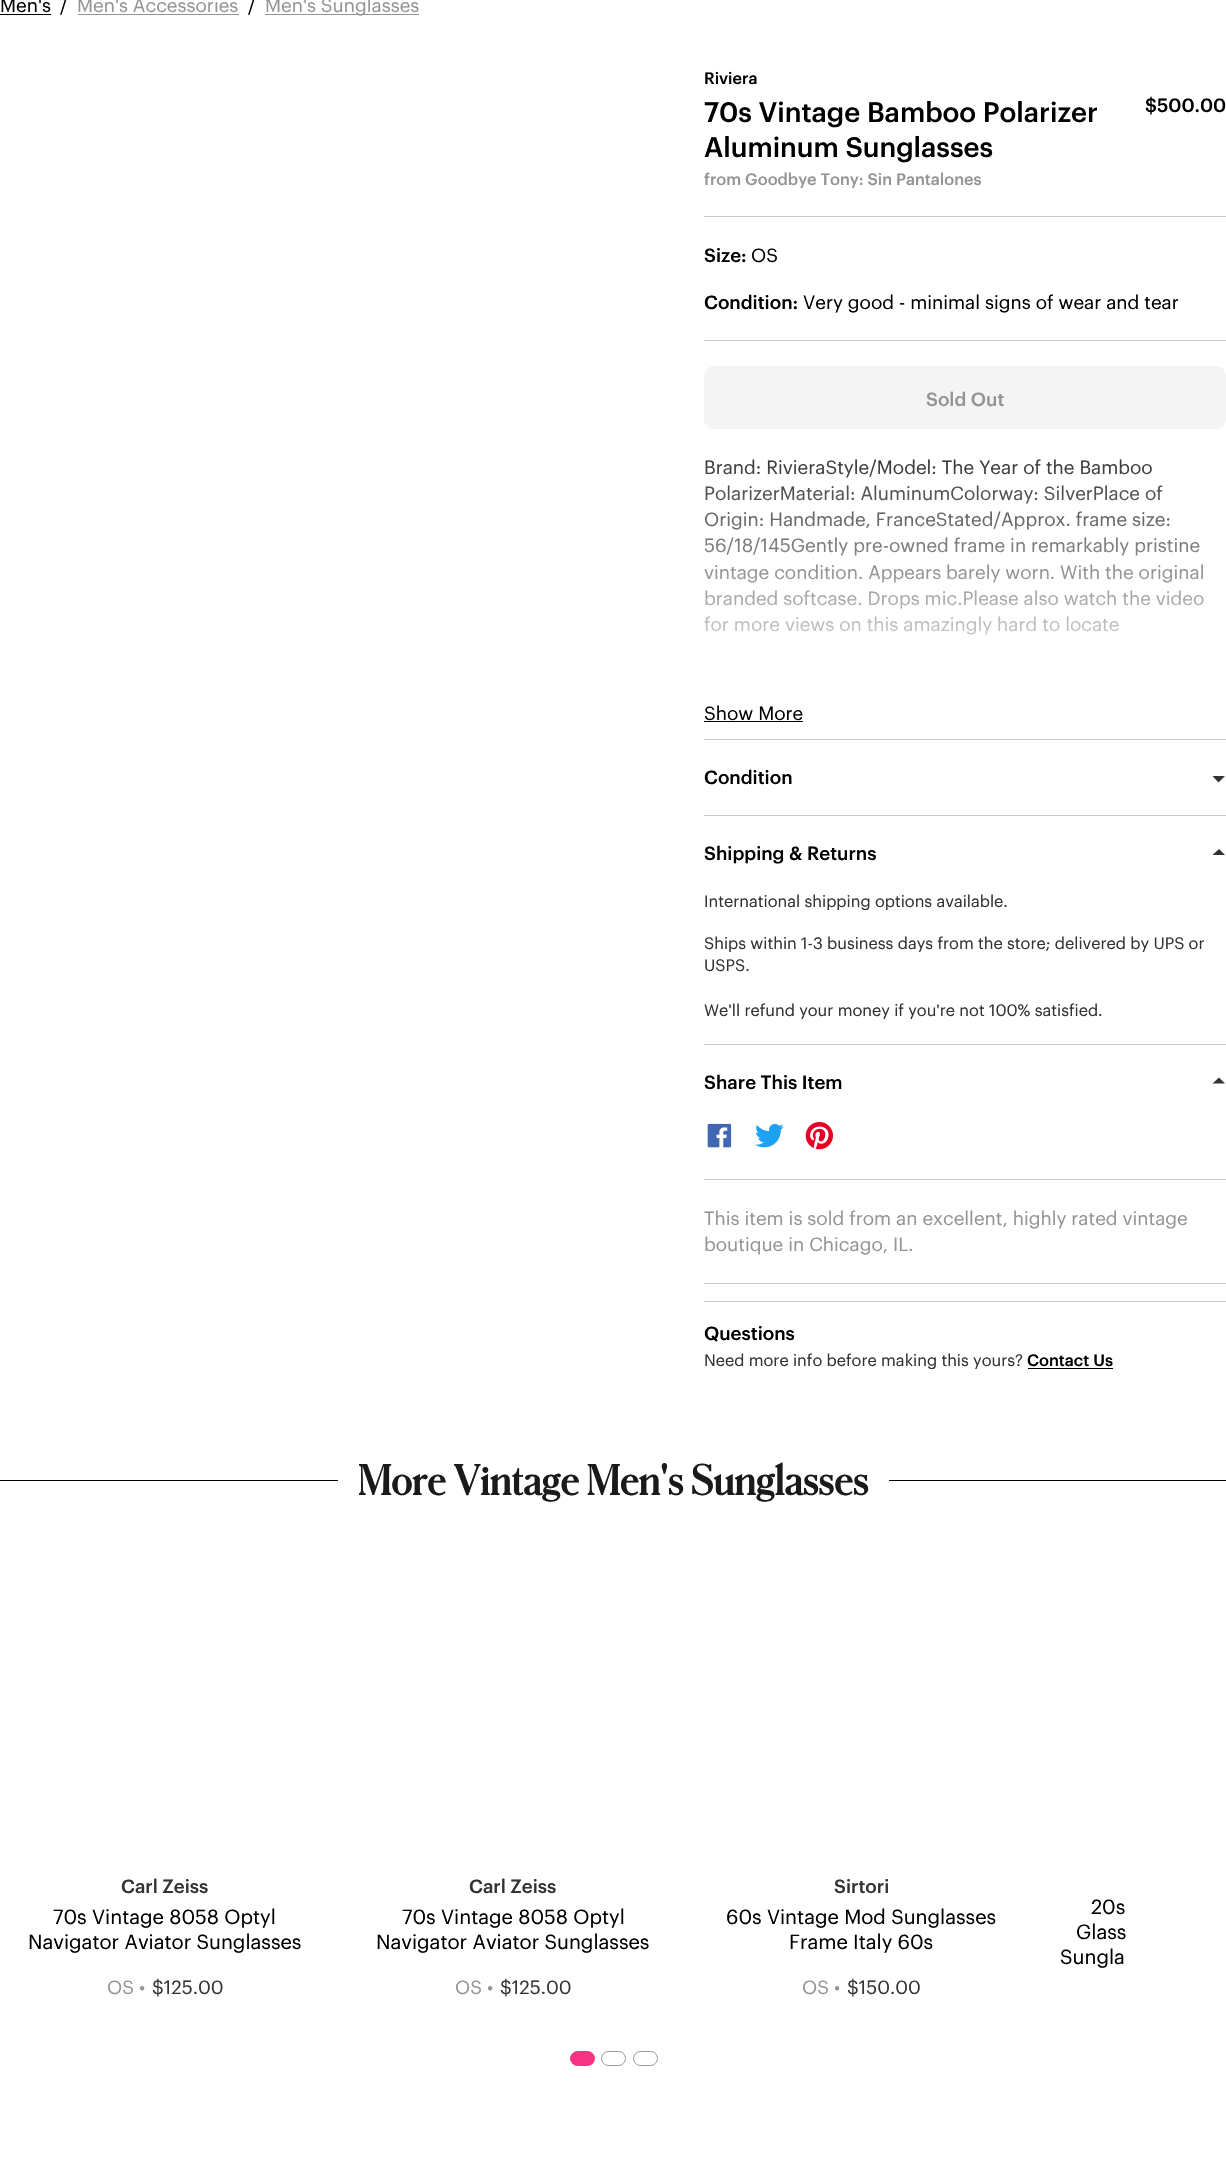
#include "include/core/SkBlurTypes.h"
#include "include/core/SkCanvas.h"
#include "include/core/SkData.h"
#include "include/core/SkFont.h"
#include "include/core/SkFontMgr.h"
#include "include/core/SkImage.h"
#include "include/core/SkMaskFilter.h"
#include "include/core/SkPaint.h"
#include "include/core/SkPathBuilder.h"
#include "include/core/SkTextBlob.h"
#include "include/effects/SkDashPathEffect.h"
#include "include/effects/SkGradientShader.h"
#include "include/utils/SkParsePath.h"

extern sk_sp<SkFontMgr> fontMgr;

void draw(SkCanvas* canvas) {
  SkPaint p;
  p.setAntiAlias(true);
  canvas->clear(SK_ColorWHITE);
  p.setColor(SK_ColorBLACK);
  canvas->drawRect(SkRect::MakeLTRB(0, 14, 51, 15), p);
  p.setColor(SkColorSetRGB(148, 148, 147));
  canvas->drawRect(SkRect::MakeLTRB(78, 14, 239, 15), p);
  canvas->drawRect(SkRect::MakeLTRB(265, 14, 419, 15), p);
  p.setColor(SkColorSetRGB(203, 203, 203));
  canvas->drawRect(SkRect::MakeLTRB(704, 216, 1226, 217), p);
  canvas->drawRect(SkRect::MakeLTRB(704, 340, 1226, 341), p);
  p.setColor(SkColorSetRGB(244, 244, 244));
  canvas->drawRoundRect(SkRect::MakeLTRB(704, 366, 1226, 429), 10, 10, p);
  p.setColor(SK_ColorBLACK);
  canvas->drawRect(SkRect::MakeLTRB(704, 721, 803, 722), p);
  p.setColor(SkColorSetRGB(203, 203, 203));
  canvas->drawRect(SkRect::MakeLTRB(704, 739, 1226, 740), p);
  p.setColor(SkColorSetRGB(51, 51, 51));
  canvas->drawPath(SkPathBuilder(SkPathFillType::kEvenOdd).moveTo(1225, 776).lineTo(1218.5f, 782.5f).lineTo(1212.5f, 776).close().detach(), p);
  p.setColor(SkColorSetRGB(203, 203, 203));
  canvas->drawRect(SkRect::MakeLTRB(704, 815, 1226, 816), p);
  p.setColor(SkColorSetRGB(51, 51, 51));
  canvas->drawPath(SkPathBuilder(SkPathFillType::kEvenOdd).moveTo(1212.5f, 855).lineTo(1219, 849).lineTo(1225, 855).close().detach(), p);
  p.setColor(SkColorSetRGB(203, 203, 203));
  canvas->drawRect(SkRect::MakeLTRB(704, 1044, 1226, 1045), p);
  p.setColor(SkColorSetRGB(51, 51, 51));
  canvas->drawPath(SkPathBuilder(SkPathFillType::kEvenOdd).moveTo(1212.5f, 1083.5f).lineTo(1219, 1077.5f).lineTo(1225, 1083.5f).close().detach(), p);
  canvas->drawImageRect(SkImages::DeferredFromEncodedData(SkData::MakeFromFileName("images/1.png")), SkRect::MakeLTRB(707, 1123, 732, 1148), SkSamplingOptions());
  canvas->drawImageRect(SkImages::DeferredFromEncodedData(SkData::MakeFromFileName("images/2.png")), SkRect::MakeLTRB(755, 1123, 784, 1148), SkSamplingOptions());
  canvas->drawImageRect(SkImages::DeferredFromEncodedData(SkData::MakeFromFileName("images/3.png")), SkRect::MakeLTRB(805, 1122, 833, 1150), SkSamplingOptions());
  p.setColor(SkColorSetRGB(203, 203, 203));
  canvas->drawRect(SkRect::MakeLTRB(704, 1179, 1226, 1180), p);
  canvas->drawRect(SkRect::MakeLTRB(704, 1283, 1226, 1284), p);
  canvas->drawRect(SkRect::MakeLTRB(704, 1301, 1226, 1302), p);
  p.setColor(SK_ColorBLACK);
  canvas->drawRect(SkRect::MakeLTRB(1028, 1368, 1113, 1369), p);
  canvas->drawRect(SkRect::MakeLTRB(0, 1480, 1226, 1481), p);
  p.setColor(SK_ColorWHITE);
  canvas->drawRect(SkRect::MakeLTRB(338, 1480, 889, 1481), p);
  p.setColor(SkColorSetRGB(247, 50, 132));
  canvas->drawRoundRect(SkRect::MakeLTRB(570.5f, 2051.5f, 594.5f, 2065.5f), 7, 7, p);
  p.setStyle(SkPaint::kStroke_Style);
  p.setStrokeWidth(1);
  canvas->drawRoundRect(SkRect::MakeLTRB(570.5f, 2051.5f, 594.5f, 2065.5f), 7, 7, p);
  p.setColor(SkColorSetRGB(151, 151, 151));
  canvas->drawRoundRect(SkRect::MakeLTRB(601.5f, 2051.5f, 625.5f, 2065.5f), 7, 7, p);
  canvas->drawRoundRect(SkRect::MakeLTRB(633.5f, 2051.5f, 657.5f, 2065.5f), 7, 7, p);
  SkFont font1(fontMgr->matchFamilyStyle("Graphik", SkFontStyle::Normal()), 18.75f);
  font1.setSubpixel(true);
  p.setStyle(SkPaint::kFill_Style);
  p.setColor(SK_ColorBLACK);
  canvas->drawString("Men's", 0, 12, font1, p);
  canvas->drawString("/", 60, 12, font1, p);
  p.setColor(SkColorSetRGB(148, 148, 147));
  canvas->drawString("Men's Accessories", 77, 12, font1, p);
  p.setColor(SK_ColorBLACK);
  canvas->drawString("/", 248, 12, font1, p);
  p.setColor(SkColorSetRGB(148, 148, 147));
  canvas->drawString("Men's Sunglasses", 265, 12, font1, p);
  SkFont font2(fontMgr->matchFamilyStyle("Graphik", SkFontStyle(500, SkFontStyle::kNormal_Width, SkFontStyle::kUpright_Slant)), 16.25f);
  font2.setSubpixel(true);
  p.setColor(SK_ColorBLACK);
  canvas->drawString("Riviera", 704, 84, font2, p);
  SkFont font3(fontMgr->matchFamilyStyle("Graphik", SkFontStyle(500, SkFontStyle::kNormal_Width, SkFontStyle::kUpright_Slant)), 27.5f);
  font3.setSubpixel(true);
  canvas->drawString("70s Vintage Bamboo Polarizer", 704, 122, font3, p);
  canvas->drawString("Aluminum Sunglasses", 704, 157, font3, p);
  SkFont font4(fontMgr->matchFamilyStyle("Graphik", SkFontStyle(500, SkFontStyle::kNormal_Width, SkFontStyle::kUpright_Slant)), 18.75f);
  font4.setSubpixel(true);
  canvas->drawString("$500.00", 1145, 112, font4, p);
  p.setColor(SkColorSetRGB(148, 148, 147));
  canvas->drawString("from Goodbye Tony: Sin Pantalones", 704, 185, font2, p);
  p.setColor(SK_ColorBLACK);
  canvas->drawString("Size:", 704, 262, font4, p);
  canvas->drawString("OS", 751, 262, font1, p);
  canvas->drawString("Condition:", 704, 309, font4, p);
  canvas->drawString("Very good - minimal signs of wear and tear", 803, 309, font1, p);
  p.setColor(SkColorSetRGB(148, 148, 147));
  canvas->drawString("Sold Out", 926, 406, font4, p);
  p.setColor(SkColorSetRGB(51, 51, 51));
  canvas->drawString("Brand: RivieraStyle/Model: The Year of the Bamboo", 704, 474, font1, p);
  canvas->drawString("PolarizerMaterial: AluminumColorway: SilverPlace of", 704, 500, font1, p);
  canvas->drawString("Origin: Handmade, FranceStated/Approx. frame size:", 704, 526, font1, p);
  canvas->drawString("56/18/145Gently pre-owned frame in remarkably pristine", 704, 552, font1, p);
  canvas->drawString("vintage condition. Appears barely worn. With the original", 704, 579, font1, p);
  canvas->drawString("branded softcase. Drops mic.Please also watch the video", 704, 605, font1, p);
  canvas->drawString("for more views on this amazingly hard to locate", 704, 631, font1, p);
  {
    const SkColor colors[] = {SkColorSetARGB(0, 255, 255, 255), SK_ColorWHITE};
    const float stops[] = {0, 1};
    const SkPoint ends[] = {{965, 454}, {965, 704}};
    p.setShader(SkGradientShader::MakeLinear(ends, colors, stops, 2, SkTileMode::kClamp));
    p.setAlpha(255);
  }
  canvas->drawRect(SkRect::MakeLTRB(704, 460, 1204, 635), p);
  p.setShader(nullptr);
  p.setColor(SK_ColorBLACK);
  canvas->drawString("Show More", 704, 720, font1, p);
  canvas->drawString("Condition", 704, 784, font4, p);
  canvas->drawString("Shipping & Returns", 704, 860, font4, p);
  SkFont font5(fontMgr->matchFamilyStyle("Graphik", SkFontStyle::Normal()), 16.25f);
  font5.setSubpixel(true);
  p.setColor(SkColorSetRGB(51, 51, 51));
  canvas->drawString("International shipping options available.", 704, 907, font5, p);
  canvas->drawString("Ships within 1-3 business days from the store; delivered by UPS or", 704, 949, font5, p);
  canvas->drawString("USPS.", 704, 971, font5, p);
  canvas->drawString("We'll refund your money if you're not 100% satisfied.", 704, 1016, font5, p);
  p.setColor(SK_ColorBLACK);
  canvas->drawString("Share This Item", 704, 1089, font4, p);
  p.setColor(SkColorSetRGB(148, 148, 147));
  canvas->drawString("This item is sold from an excellent, highly rated vintage", 704, 1225, font1, p);
  canvas->drawString("boutique in Chicago, IL.", 704, 1251, font1, p);
  p.setColor(SK_ColorBLACK);
  canvas->drawString("Questions", 704, 1340, font4, p);
  p.setColor(SkColorSetRGB(51, 51, 51));
  canvas->drawString("Need more info before making this yours?", 704, 1366, font5, p);
  p.setColor(SK_ColorBLACK);
  canvas->drawString("Contact Us", 1027, 1366, font2, p);
  SkFont font6(fontMgr->matchFamilyStyle("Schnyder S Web", SkFontStyle::Bold()), 39.9f);
  font6.setSubpixel(true);
  p.setColor(SkColorSetRGB(26, 26, 26));
  canvas->drawString("More Vintage Men's Sunglasses", 358, 1495, font6, p);
  p.setColor(SkColorSetRGB(51, 51, 51));
  canvas->drawString("Carl Zeiss", 121, 1893, font4, p);
  SkFont font7(fontMgr->matchFamilyStyle("Graphik", SkFontStyle::Normal()), 20);
  font7.setSubpixel(true);
  p.setColor(SK_ColorBLACK);
  canvas->drawString("70s Vintage 8058 Optyl", 53, 1924, font7, p);
  canvas->drawString("Navigator Aviator Sunglasses", 28, 1949, font7, p);
  p.setColor(SkColorSetRGB(148, 148, 147));
  canvas->drawString("OS •", 107, 1994, font1, p);
  p.setColor(SkColorSetRGB(51, 51, 51));
  canvas->drawString("$125.00", 152, 1994, font1, p);
  canvas->drawString("Carl Zeiss", 469, 1893, font4, p);
  p.setColor(SK_ColorBLACK);
  canvas->drawString("70s Vintage 8058 Optyl", 402, 1924, font7, p);
  canvas->drawString("Navigator Aviator Sunglasses", 376, 1949, font7, p);
  p.setColor(SkColorSetRGB(148, 148, 147));
  canvas->drawString("OS •", 455, 1994, font1, p);
  p.setColor(SkColorSetRGB(51, 51, 51));
  canvas->drawString("$125.00", 500, 1994, font1, p);
  canvas->drawString("Sirtori", 834, 1893, font4, p);
  p.setColor(SK_ColorBLACK);
  canvas->drawString("60s Vintage Mod Sunglasses", 726, 1924, font7, p);
  canvas->drawString("Frame Italy 60s", 789, 1949, font7, p);
  p.setColor(SkColorSetRGB(148, 148, 147));
  canvas->drawString("OS •", 802, 1994, font1, p);
  p.setColor(SkColorSetRGB(51, 51, 51));
  canvas->drawString("$150.00", 847, 1994, font1, p);
  p.setColor(SK_ColorBLACK);
  canvas->drawString("20s", 1091, 1914, font7, p);
  canvas->drawString("Glass", 1076, 1939, font7, p);
  canvas->drawString("Sungla", 1060, 1964, font7, p);
}
